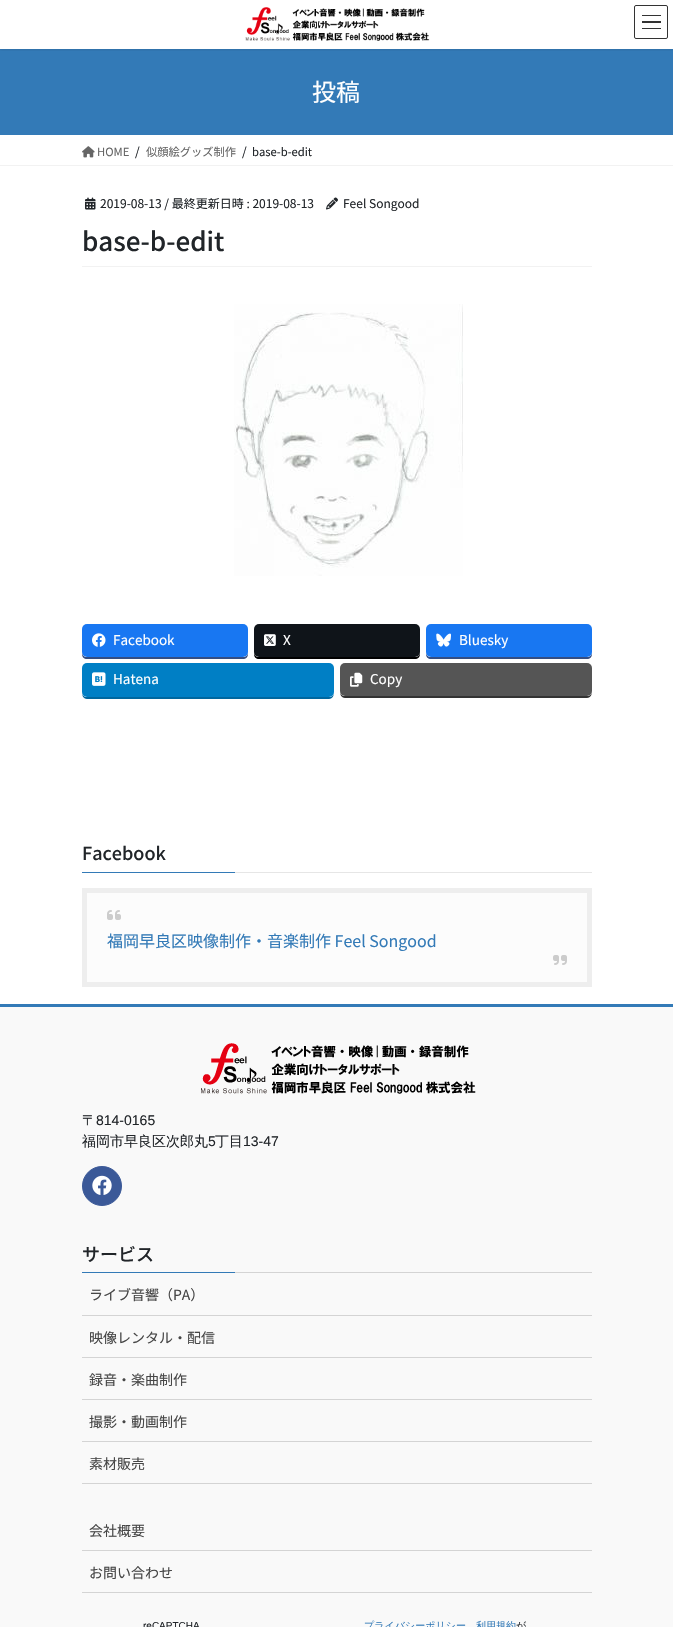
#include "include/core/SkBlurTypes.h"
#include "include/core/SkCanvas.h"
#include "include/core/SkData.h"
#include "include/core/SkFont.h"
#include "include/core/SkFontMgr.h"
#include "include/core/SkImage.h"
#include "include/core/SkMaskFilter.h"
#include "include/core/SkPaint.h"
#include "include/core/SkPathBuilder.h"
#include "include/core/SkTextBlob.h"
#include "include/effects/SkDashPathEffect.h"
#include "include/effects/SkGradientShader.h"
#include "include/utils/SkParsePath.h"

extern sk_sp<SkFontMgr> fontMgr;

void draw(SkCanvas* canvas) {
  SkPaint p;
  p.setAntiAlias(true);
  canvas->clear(SK_ColorWHITE);
  p.setColor(SkColorSetRGB(51, 122, 183));
  canvas->drawRect(SkRect::MakeLTRB(0, 49, 673, 135), p);
  canvas->save();
  canvas->clipRect(SkRect::MakeLTRB(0, 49, 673, 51));
  p.setColor(SkColorSetARGB(26, 0, 0, 0));
  p.setMaskFilter(SkMaskFilter::MakeBlur(kNormal_SkBlurStyle, 1.5f));
  canvas->drawRect(SkRect::MakeLTRB(0, 1, 673, 50), p);
  p.setMaskFilter(nullptr);
  canvas->restore();
  canvas->drawImageRect(SkImages::DeferredFromEncodedData(SkData::MakeFromFileName("images/1.png")), SkRect::MakeLTRB(245, 7, 430, 41), SkSamplingOptions());
  p.setColor(SkColorSetRGB(51, 51, 51));
  canvas->drawRect(SkRect::MakeLTRB(642, 15, 661, 16), p);
  canvas->drawRect(SkRect::MakeLTRB(642, 21, 661, 23), p);
  canvas->drawRect(SkRect::MakeLTRB(642, 28, 661, 29), p);
  p.setStyle(SkPaint::kStroke_Style);
  p.setStrokeWidth(1);
  canvas->drawRoundRect(SkRect::MakeLTRB(634.5f, 5.5f, 667.5f, 38.5f), 1.5f, 1.5f, p);
  p.setStyle(SkPaint::kFill_Style);
  p.setColor(SkColorSetRGB(242, 242, 242));
  canvas->drawRect(SkRect::MakeLTRB(0, 165, 673, 166), p);
  canvas->drawImageRect(SkImages::DeferredFromEncodedData(SkData::MakeFromFileName("images/2.png")), SkRect::MakeLTRB(82, 146, 95, 158), SkSamplingOptions());
  canvas->drawRect(SkRect::MakeLTRB(82, 266, 592, 267), p);
  canvas->drawImageRect(SkImages::DeferredFromEncodedData(SkData::MakeFromFileName("images/3.png")), SkRect::MakeLTRB(85, 197, 96, 210), SkSamplingOptions());
  canvas->drawImageRect(SkImages::DeferredFromEncodedData(SkData::MakeFromFileName("images/4.png")), SkRect::MakeLTRB(326, 197, 338, 210), SkSamplingOptions());
  canvas->drawImageRect(SkImages::DeferredFromEncodedData(SkData::MakeFromFileName("images/5.png")), SkRect::MakeLTRB(234, 304, 463, 576), SkSamplingOptions());
  p.setColor(SkColorSetRGB(52, 78, 132));
  canvas->drawPath(SkPathBuilder().moveTo(82, 652).lineTo(82, 654).cubicTo(82, 657, 84, 659, 87, 659).lineTo(243, 659).cubicTo(246, 659, 248, 657, 248, 654).lineTo(248, 652).cubicTo(248, 655, 246, 657, 243, 657).lineTo(87, 657).cubicTo(84, 657, 82, 655, 82, 652).close().detach(), p);
  p.setColor(SkColorSetRGB(24, 119, 242));
  canvas->drawRoundRect(SkRect::MakeLTRB(82, 624, 248, 657), 5, 5, p);
  canvas->drawImageRect(SkImages::DeferredFromEncodedData(SkData::MakeFromFileName("images/6.png")), SkRect::MakeLTRB(92, 633, 106, 647), SkSamplingOptions());
  p.setColor(SK_ColorBLACK);
  canvas->drawPath(SkPathBuilder().moveTo(254, 652).lineTo(254, 654).cubicTo(254, 657, 256, 659, 259, 659).lineTo(415, 659).cubicTo(418, 659, 420, 657, 420, 654).lineTo(420, 652).cubicTo(420, 655, 418, 657, 415, 657).lineTo(259, 657).cubicTo(256, 657, 254, 655, 254, 652).close().detach(), p);
  p.setColor(SkColorSetRGB(15, 20, 25));
  canvas->drawRoundRect(SkRect::MakeLTRB(254, 624, 420, 657), 5, 5, p);
  canvas->drawImageRect(SkImages::DeferredFromEncodedData(SkData::MakeFromFileName("images/7.png")), SkRect::MakeLTRB(264, 634, 276, 646), SkSamplingOptions());
  p.setColor(SkColorSetRGB(52, 78, 132));
  canvas->drawPath(SkPathBuilder().moveTo(426, 652).lineTo(426, 654).cubicTo(426, 657, 428, 659, 431, 659).lineTo(587, 659).cubicTo(590, 659, 592, 657, 592, 654).lineTo(592, 652).cubicTo(592, 655, 590, 657, 587, 657).lineTo(431, 657).cubicTo(428, 657, 426, 655, 426, 652).close().detach(), p);
  p.setColor(SkColorSetRGB(24, 119, 242));
  canvas->drawRoundRect(SkRect::MakeLTRB(426, 624, 592, 657), 5, 5, p);
  canvas->drawImageRect(SkImages::DeferredFromEncodedData(SkData::MakeFromFileName("images/8.png")), SkRect::MakeLTRB(436, 633, 451, 647), SkSamplingOptions());
  p.setColor(SkColorSetRGB(0, 103, 159));
  canvas->drawPath(SkPathBuilder().moveTo(82, 692).cubicTo(82, 695, 83, 699, 87, 699).lineTo(329, 699).cubicTo(333, 699, 334, 695, 334, 692).cubicTo(334, 695, 332, 697, 329, 697).lineTo(87, 697).cubicTo(84, 697, 82, 695, 82, 692).close().detach(), p);
  p.setColor(SkColorSetRGB(0, 127, 197));
  canvas->drawRoundRect(SkRect::MakeLTRB(82, 663, 334, 697), 5, 5, p);
  canvas->drawImageRect(SkImages::DeferredFromEncodedData(SkData::MakeFromFileName("images/9.png")), SkRect::MakeLTRB(92, 672, 106, 686), SkSamplingOptions());
  p.setColor(SkColorSetRGB(51, 51, 51));
  canvas->drawPath(SkPathBuilder().moveTo(340, 691).cubicTo(340, 694, 341, 698, 345, 698).lineTo(587, 698).cubicTo(591, 698, 592, 694, 592, 691).cubicTo(592, 694, 590, 696, 587, 696).lineTo(345, 696).cubicTo(342, 696, 340, 694, 340, 691).close().detach(), p);
  p.setColor(SkColorSetRGB(85, 85, 85));
  canvas->drawRoundRect(SkRect::MakeLTRB(340, 663, 592, 696), 5, 5, p);
  canvas->drawImageRect(SkImages::DeferredFromEncodedData(SkData::MakeFromFileName("images/10.png")), SkRect::MakeLTRB(350, 672, 363, 687), SkSamplingOptions());
  p.setColor(SkColorSetRGB(230, 230, 230));
  canvas->drawRect(SkRect::MakeLTRB(235, 872, 592, 873), p);
  p.setColor(SkColorSetRGB(51, 122, 183));
  canvas->drawRect(SkRect::MakeLTRB(82, 872, 235, 873), p);
  p.setColor(SkColorSetRGB(252, 252, 252));
  canvas->drawRect(SkRect::MakeLTRB(84.5f, 890.5f, 589.5f, 984.5f), p);
  p.setStyle(SkPaint::kStroke_Style);
  p.setStrokeWidth(5);
  p.setColor(SkColorSetRGB(238, 238, 238));
  canvas->drawRect(SkRect::MakeLTRB(84.5f, 890.5f, 589.5f, 984.5f), p);
  canvas->drawImageRect(SkImages::DeferredFromEncodedData(SkData::MakeFromFileName("images/11.png")), SkRect::MakeLTRB(107, 910, 121, 920), SkSamplingOptions());
  canvas->drawImageRect(SkImages::DeferredFromEncodedData(SkData::MakeFromFileName("images/12.png")), SkRect::MakeLTRB(553, 955, 567, 965), SkSamplingOptions());
  p.setStyle(SkPaint::kFill_Style);
  p.setColor(SkColorSetRGB(249, 249, 249));
  canvas->drawRect(SkRect::MakeLTRB(0, 1007, 673, 1627), p);
  p.setColor(SkColorSetRGB(51, 122, 183));
  canvas->drawRect(SkRect::MakeLTRB(0, 1004, 673, 1007), p);
  canvas->drawImageRect(SkImages::DeferredFromEncodedData(SkData::MakeFromFileName("images/13.png")), SkRect::MakeLTRB(201, 1043, 476, 1094), SkSamplingOptions());
  p.setColor(SkColorSetRGB(59, 89, 152));
  canvas->drawCircle(102, 1186, 19.5f, p);
  p.setStyle(SkPaint::kStroke_Style);
  p.setStrokeWidth(1);
  canvas->drawCircle(102, 1186, 19.5f, p);
  canvas->drawImageRect(SkImages::DeferredFromEncodedData(SkData::MakeFromFileName("images/14.png")), SkRect::MakeLTRB(92, 1175, 112, 1195), SkSamplingOptions());
  p.setStyle(SkPaint::kFill_Style);
  p.setColor(SkColorSetRGB(212, 212, 212));
  canvas->drawRect(SkRect::MakeLTRB(235, 1272, 592, 1273), p);
  p.setColor(SkColorSetRGB(51, 122, 183));
  canvas->drawRect(SkRect::MakeLTRB(82, 1272, 235, 1273), p);
  p.setColor(SkColorSetRGB(212, 212, 212));
  canvas->drawRect(SkRect::MakeLTRB(82, 1315, 592, 1316), p);
  canvas->drawRect(SkRect::MakeLTRB(82, 1357, 592, 1358), p);
  canvas->drawRect(SkRect::MakeLTRB(82, 1399, 592, 1400), p);
  canvas->drawRect(SkRect::MakeLTRB(82, 1441, 592, 1442), p);
  canvas->drawRect(SkRect::MakeLTRB(82, 1483, 592, 1484), p);
  canvas->drawRect(SkRect::MakeLTRB(82, 1550, 592, 1551), p);
  canvas->drawRect(SkRect::MakeLTRB(82, 1592, 592, 1593), p);
  SkFont font1(fontMgr->matchFamilyStyle("Noto Sans JP", SkFontStyle::Normal()), 24);
  font1.setSubpixel(true);
  p.setColor(SK_ColorWHITE);
  canvas->drawString("投稿", 312, 101, font1, p);
  SkFont font2(fontMgr->matchFamilyStyle("Noto Sans JP", SkFontStyle::Normal()), 11.25f);
  font2.setSubpixel(true);
  p.setColor(SkColorSetRGB(102, 102, 102));
  canvas->drawString("HOME", 97, 156, font2, p);
  SkFont font3(fontMgr->matchFamilyStyle("Noto Sans JP", SkFontStyle::Normal()), 12);
  font3.setSubpixel(true);
  p.setColor(SkColorSetRGB(33, 37, 41));
  canvas->drawString("/", 135, 156, font3, p);
  p.setColor(SkColorSetRGB(102, 102, 102));
  canvas->drawString("似顔絵グッズ制作", 146, 156, font2, p);
  p.setColor(SkColorSetRGB(33, 37, 41));
  canvas->drawString("/", 242, 156, font3, p);
  canvas->drawString("base-b-edit", 252, 156, font2, p);
  canvas->drawString("2019-08-13 / 最終更新日時 : 2019-08-13", 100, 208, font3, p);
  canvas->drawString("Feel Songood", 343, 208, font3, p);
  SkFont font4(fontMgr->matchFamilyStyle("Noto Sans JP", SkFontStyle(500, SkFontStyle::kNormal_Width, SkFontStyle::kUpright_Slant)), 26);
  font4.setSubpixel(true);
  canvas->drawString("base-b-edit", 82, 251, font4, p);
  SkFont font5(fontMgr->matchFamilyStyle("Noto Sans JP", SkFontStyle::Normal()), 13.5f);
  font5.setSubpixel(true);
  p.setColor(SK_ColorWHITE);
  canvas->drawString("Facebook", 113, 645, font5, p);
  canvas->drawString("X", 283, 645, font5, p);
  canvas->drawString("Bluesky", 459, 645, font5, p);
  canvas->drawString("Hatena", 113, 684, font5, p);
  canvas->drawString("Copy", 370, 684, font5, p);
  SkFont font6(fontMgr->matchFamilyStyle("Noto Sans JP", SkFontStyle(500, SkFontStyle::kNormal_Width, SkFontStyle::kUpright_Slant)), 18);
  font6.setSubpixel(true);
  p.setColor(SkColorSetRGB(33, 37, 41));
  canvas->drawString("Facebook", 82, 860, font6, p);
  SkFont font7(fontMgr->matchFamilyStyle("Noto Sans JP", SkFontStyle::Normal()), 16);
  font7.setSubpixel(true);
  p.setColor(SkColorSetRGB(51, 122, 183));
  canvas->drawString("福岡早良区映像制作・音楽制作 Feel Songood", 107, 947, font7, p);
  SkFont font8(fontMgr->matchFamilyStyle("WenQuanYi Zen Hei", SkFontStyle(500, SkFontStyle::kNormal_Width, SkFontStyle::kUpright_Slant)), 14);
  font8.setSubpixel(true);
  p.setColor(SkColorSetRGB(33, 37, 41));
  canvas->drawString("〒", 82, 1125, font8, p);
  SkFont font9(fontMgr->matchFamilyStyle("Liberation Sans", SkFontStyle::Normal()), 14);
  font9.setSubpixel(true);
  canvas->drawString("814-0165", 96, 1125, font9, p);
  canvas->drawString("福岡市早良区次郎丸", 82, 1146, font8, p);
  canvas->drawString("5", 208, 1146, font9, p);
  canvas->drawString("丁目", 215, 1146, font8, p);
  canvas->drawString("13-47", 243, 1146, font9, p);
  canvas->drawString("サービス", 82, 1261, font6, p);
  SkFont font10(fontMgr->matchFamilyStyle("Noto Sans JP", SkFontStyle::Normal()), 14);
  font10.setSubpixel(true);
  p.setColor(SkColorSetRGB(70, 70, 70));
  canvas->drawString("ライブ音響（PA）", 89, 1300, font10, p);
  canvas->drawString("映像レンタル・配信", 89, 1343, font10, p);
  canvas->drawString("録音・楽曲制作", 89, 1385, font10, p);
  canvas->drawString("撮影・動画制作", 89, 1427, font10, p);
  canvas->drawString("素材販売", 89, 1469, font10, p);
  canvas->drawString("会社概要", 89, 1536, font10, p);
  canvas->drawString("お問い合わせ", 89, 1578, font10, p);
  SkFont font11(fontMgr->matchFamilyStyle("Liberation Sans", SkFontStyle::Normal()), 10);
  font11.setSubpixel(true);
  p.setColor(SkColorSetRGB(33, 37, 41));
  canvas->drawString("reCAPTCHA", 143, 1629, font11, p);
  SkFont font12(fontMgr->matchFamilyStyle("WenQuanYi Zen Hei", SkFontStyle(500, SkFontStyle::kNormal_Width, SkFontStyle::kUpright_Slant)), 10);
  font12.setSubpixel(true);
  p.setColor(SkColorSetRGB(51, 122, 183));
  canvas->drawString("プライバシーポリシー", 364, 1629, font12, p);
  canvas->drawString("利用規約", 476, 1629, font12, p);
  p.setColor(SkColorSetRGB(33, 37, 41));
  canvas->drawString("が", 516, 1629, font12, p);
}
